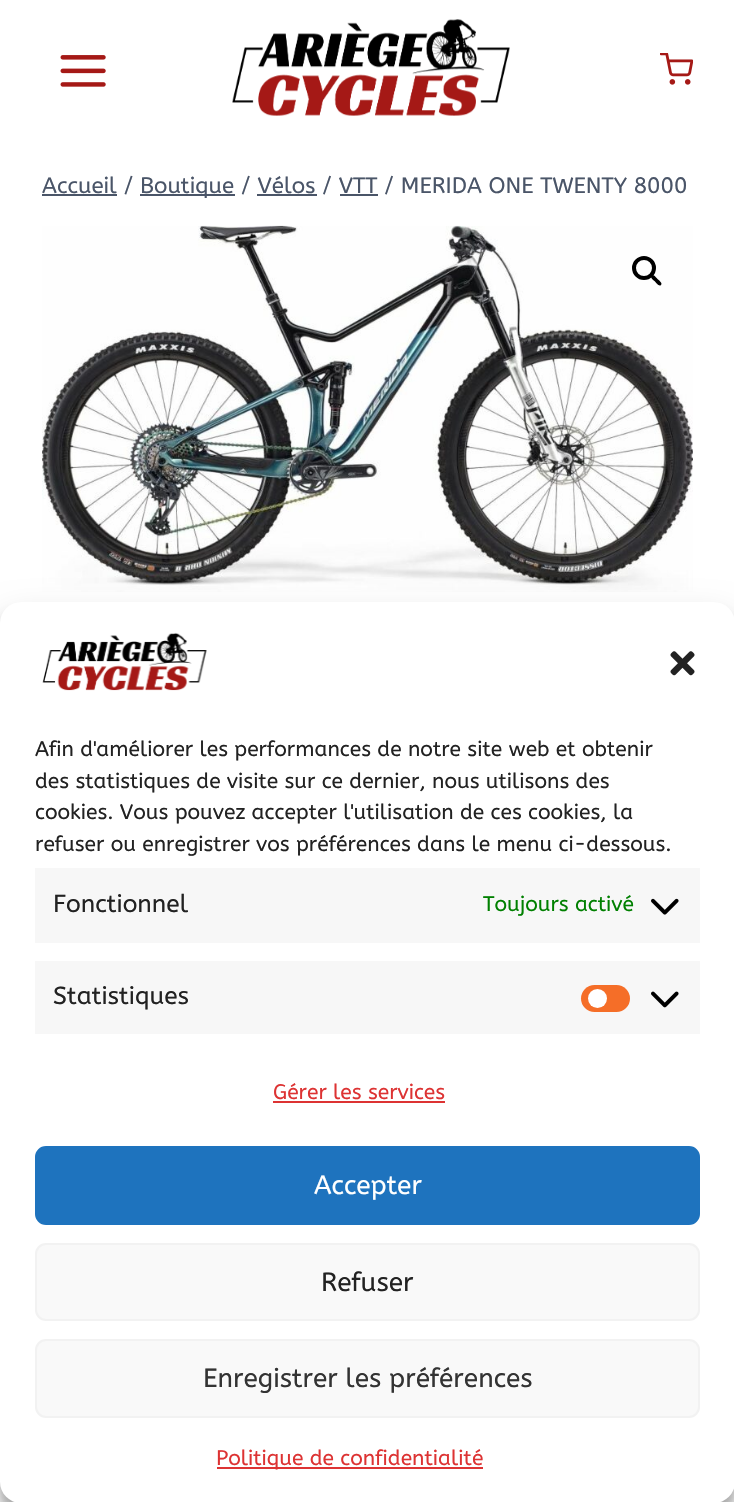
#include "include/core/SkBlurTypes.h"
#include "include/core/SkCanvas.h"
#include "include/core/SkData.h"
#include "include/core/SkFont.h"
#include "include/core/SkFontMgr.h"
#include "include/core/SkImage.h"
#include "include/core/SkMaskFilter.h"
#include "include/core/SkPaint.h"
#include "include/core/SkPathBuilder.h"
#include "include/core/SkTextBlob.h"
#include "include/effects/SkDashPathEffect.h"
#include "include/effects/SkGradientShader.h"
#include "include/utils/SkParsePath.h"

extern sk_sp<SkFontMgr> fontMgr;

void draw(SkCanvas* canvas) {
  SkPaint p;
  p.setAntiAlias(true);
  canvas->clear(SK_ColorWHITE);
  canvas->drawImageRect(SkImages::DeferredFromEncodedData(SkData::MakeFromFileName("images/1.png")), SkRect::MakeLTRB(60, 55, 106, 87), SkSamplingOptions());
  canvas->drawImageRect(SkImages::DeferredFromEncodedData(SkData::MakeFromFileName("images/2.png")), SkRect::MakeLTRB(232, 19, 510, 116), SkSamplingOptions());
  canvas->drawImageRect(SkImages::DeferredFromEncodedData(SkData::MakeFromFileName("images/3.png")), SkRect::MakeLTRB(660, 53, 693, 85), SkSamplingOptions());
  p.setColor(SkColorSetRGB(74, 85, 104));
  canvas->drawRect(SkRect::MakeLTRB(42, 194, 117, 196), p);
  canvas->drawRect(SkRect::MakeLTRB(140, 194, 235, 196), p);
  canvas->drawRect(SkRect::MakeLTRB(257, 194, 317, 196), p);
  canvas->drawRect(SkRect::MakeLTRB(340, 194, 378, 196), p);
  canvas->drawImageRect(SkImages::DeferredFromEncodedData(SkData::MakeFromFileName("images/4.png")), SkRect::MakeLTRB(42, 225, 693, 592), SkSamplingOptions());
  p.setStyle(SkPaint::kStroke_Style);
  p.setStrokeWidth(4);
  p.setColor(SK_ColorBLACK);
  canvas->drawCircle(644, 268, 10, p);
  p.setStyle(SkPaint::kFill_Style);
  canvas->drawPath(SkPathBuilder().moveTo(651.5f, 275.5f).cubicTo(653.5f, 273.5f, 656.5f, 278, 657.5f, 279).cubicTo(658.5f, 280, 663, 283, 661, 285).cubicTo(659, 287, 656, 282.5f, 655, 281.5f).cubicTo(654, 280.5f, 649.5f, 277.5f, 651.5f, 275.5f).close().detach(), p);
  p.setColor(SkColorSetARGB(59, 0, 0, 0));
  p.setMaskFilter(SkMaskFilter::MakeBlur(kNormal_SkBlurStyle, 5));
  canvas->drawRoundRect(SkRect::MakeLTRB(0, 613, 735, 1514), 21, 21, p);
  p.setMaskFilter(nullptr);
  p.setColor(SkColorSetARGB(48, 0, 0, 0));
  p.setMaskFilter(SkMaskFilter::MakeBlur(kNormal_SkBlurStyle, 17.5f));
  canvas->drawRoundRect(SkRect::MakeLTRB(0, 620, 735, 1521), 21, 21, p);
  p.setMaskFilter(nullptr);
  p.setColor(SK_ColorWHITE);
  canvas->drawRoundRect(SkRect::MakeLTRB(0, 602, 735, 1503), 21, 21, p);
  canvas->drawImageRect(SkImages::DeferredFromEncodedData(SkData::MakeFromFileName("images/5.png")), SkRect::MakeLTRB(42, 632, 207, 691), SkSamplingOptions());
  canvas->drawImageRect(SkImages::DeferredFromEncodedData(SkData::MakeFromFileName("images/6.png")), SkRect::MakeLTRB(670, 651, 695, 676), SkSamplingOptions());
  p.setColor(SkColorSetRGB(247, 247, 247));
  canvas->drawRect(SkRect::MakeLTRB(35, 868, 700, 943), p);
  canvas->drawImageRect(SkImages::DeferredFromEncodedData(SkData::MakeFromFileName("images/7.png")), SkRect::MakeLTRB(651, 898, 679, 915), SkSamplingOptions());
  canvas->drawRect(SkRect::MakeLTRB(35, 961, 700, 1034), p);
  p.setColor(SkColorSetRGB(245, 110, 40));
  canvas->drawRoundRect(SkRect::MakeLTRB(581, 985, 630, 1012), 13.5f, 13.5f, p);
  p.setColor(SK_ColorWHITE);
  canvas->drawCircle(597.5f, 998.5f, 9.5f, p);
  canvas->drawImageRect(SkImages::DeferredFromEncodedData(SkData::MakeFromFileName("images/8.png")), SkRect::MakeLTRB(651, 991, 679, 1008), SkSamplingOptions());
  p.setColor(SkColorSetRGB(221, 51, 51));
  canvas->drawRect(SkRect::MakeLTRB(273, 1101, 445, 1103), p);
  p.setColor(SkColorSetRGB(30, 115, 190));
  canvas->drawRoundRect(SkRect::MakeLTRB(36, 1147, 699, 1224), 10, 10, p);
  p.setStyle(SkPaint::kStroke_Style);
  p.setStrokeWidth(2);
  canvas->drawRoundRect(SkRect::MakeLTRB(36, 1147, 699, 1224), 10, 10, p);
  p.setStyle(SkPaint::kFill_Style);
  p.setColor(SkColorSetRGB(249, 249, 249));
  canvas->drawRoundRect(SkRect::MakeLTRB(36, 1244, 699, 1320), 10, 10, p);
  p.setStyle(SkPaint::kStroke_Style);
  p.setColor(SkColorSetRGB(242, 242, 242));
  canvas->drawRoundRect(SkRect::MakeLTRB(36, 1244, 699, 1320), 10, 10, p);
  p.setStyle(SkPaint::kFill_Style);
  p.setColor(SkColorSetRGB(249, 249, 249));
  canvas->drawRoundRect(SkRect::MakeLTRB(36, 1340, 699, 1417), 10, 10, p);
  p.setStyle(SkPaint::kStroke_Style);
  p.setColor(SkColorSetRGB(242, 242, 242));
  canvas->drawRoundRect(SkRect::MakeLTRB(36, 1340, 699, 1417), 10, 10, p);
  p.setStyle(SkPaint::kFill_Style);
  p.setColor(SkColorSetRGB(221, 51, 51));
  canvas->drawRect(SkRect::MakeLTRB(217, 1467, 483, 1469), p);
  SkFont font1(fontMgr->matchFamilyStyle("ABeeZee", SkFontStyle::Normal()), 22.3f);
  font1.setSubpixel(true);
  p.setColor(SkColorSetRGB(74, 85, 104));
  canvas->drawString("Accueil /", 42, 193, font1, p);
  canvas->drawString("Boutique / Vélos / VTT / MERIDA ONE TWENTY 8000", 140, 193, font1, p);
  SkFont font2(fontMgr->matchFamilyStyle("ABeeZee", SkFontStyle::Normal()), 21);
  font2.setSubpixel(true);
  p.setColor(SkColorSetRGB(34, 34, 34));
  canvas->drawString("Afin d'améliorer les performances de notre site web et obtenir", 35, 756, font2, p);
  canvas->drawString("des statistiques de visite sur ce dernier, nous utilisons des", 35, 788, font2, p);
  canvas->drawString("cookies. Vous pouvez accepter l'utilisation de ces cookies, la", 35, 819, font2, p);
  canvas->drawString("refuser ou enregistrer vos préférences dans le menu ci-dessous.", 35, 851, font2, p);
  SkFont font3(fontMgr->matchFamilyStyle("ABeeZee", SkFontStyle::Normal()), 24.5f);
  font3.setSubpixel(true);
  canvas->drawString("Fonctionnel", 53, 912, font3, p);
  p.setColor(SkColorSetRGB(0, 128, 0));
  canvas->drawString("Toujours activé", 483, 911, font2, p);
  p.setColor(SkColorSetRGB(34, 34, 34));
  canvas->drawString("Statistiques", 53, 1004, font3, p);
  p.setColor(SkColorSetRGB(221, 51, 51));
  canvas->drawString("Gérer les services", 273, 1099, font2, p);
  SkFont font4(fontMgr->matchFamilyStyle("ABeeZee", SkFontStyle::Normal()), 26.25f);
  font4.setSubpixel(true);
  p.setColor(SK_ColorWHITE);
  canvas->drawString("Accepter", 314, 1194, font4, p);
  p.setColor(SkColorSetRGB(34, 34, 34));
  canvas->drawString("Refuser", 321, 1291, font4, p);
  p.setColor(SkColorSetRGB(51, 51, 51));
  canvas->drawString("Enregistrer les préférences", 203, 1387, font4, p);
  p.setColor(SkColorSetRGB(221, 51, 51));
  canvas->drawString("Politique de confidentialité", 216, 1465, font2, p);
}
